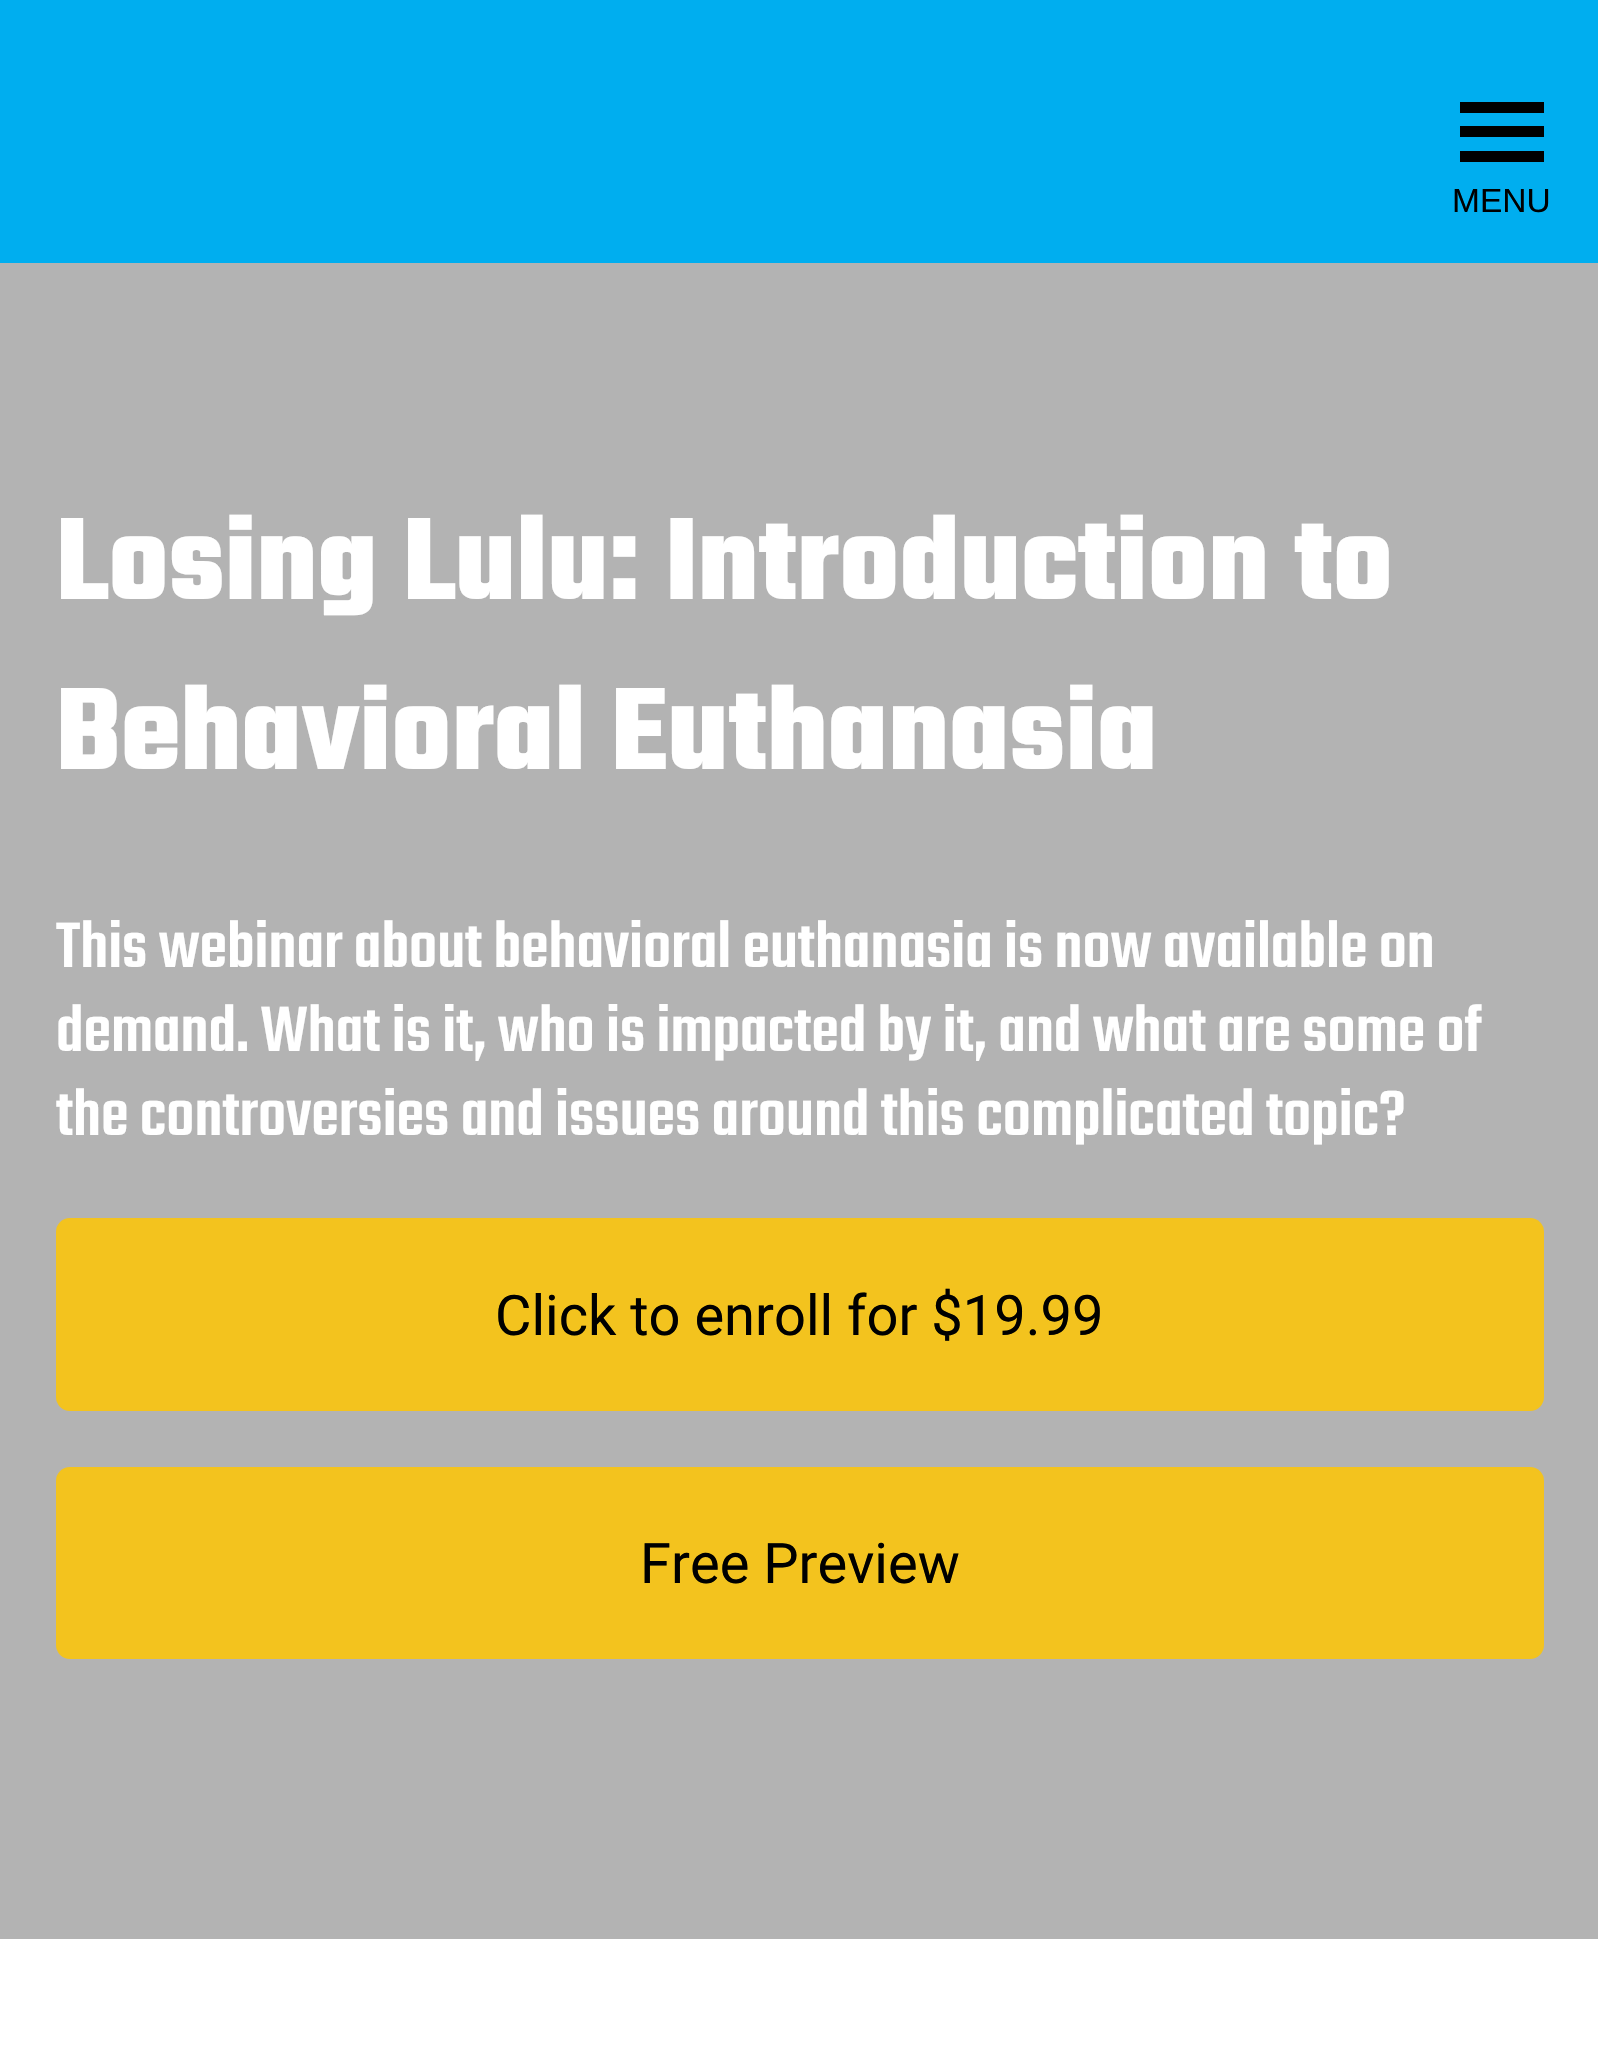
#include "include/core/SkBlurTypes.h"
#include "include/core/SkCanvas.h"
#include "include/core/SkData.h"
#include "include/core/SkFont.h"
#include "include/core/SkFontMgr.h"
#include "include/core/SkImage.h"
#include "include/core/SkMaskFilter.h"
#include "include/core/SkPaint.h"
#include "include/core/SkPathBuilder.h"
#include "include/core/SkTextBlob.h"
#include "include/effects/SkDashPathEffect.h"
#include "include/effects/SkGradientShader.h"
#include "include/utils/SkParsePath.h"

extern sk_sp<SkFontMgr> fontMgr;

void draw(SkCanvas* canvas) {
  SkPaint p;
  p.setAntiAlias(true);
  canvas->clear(SK_ColorWHITE);
  p.setColor(SkColorSetRGB(0, 174, 239));
  canvas->drawRect(SkRect::MakeLTRB(0, 0, 1598, 263), p);
  p.setColor(SK_ColorBLACK);
  canvas->drawRect(SkRect::MakeLTRB(1460, 126, 1544, 137), p);
  canvas->drawRect(SkRect::MakeLTRB(1460, 102, 1544, 113), p);
  canvas->drawRect(SkRect::MakeLTRB(1460, 151, 1544, 162), p);
  p.setColor(SkColorSetRGB(179, 179, 179));
  canvas->drawRect(SkRect::MakeLTRB(0, 263, 1598, 1939), p);
  p.setColor(SkColorSetRGB(243, 195, 30));
  canvas->drawRoundRect(SkRect::MakeLTRB(56, 1218, 1544, 1411), 14, 14, p);
  canvas->drawRoundRect(SkRect::MakeLTRB(56, 1467, 1544, 1659), 14, 14, p);
  SkFont font1(fontMgr->matchFamilyStyle("Liberation Sans", SkFontStyle::Normal()), 33.5f);
  font1.setSubpixel(true);
  p.setColor(SK_ColorBLACK);
  canvas->drawString("MENU", 1452, 212, font1, p);
  SkFont font2(fontMgr->matchFamilyStyle("Teko", SkFontStyle::Bold()), 126);
  font2.setSubpixel(true);
  p.setColor(SK_ColorWHITE);
  canvas->drawString("Losing Lulu: Introduction to", 56, 599, font2, p);
  canvas->drawString("Behavioral Euthanasia", 56, 769, font2, p);
  SkFont font3(fontMgr->matchFamilyStyle("Teko", SkFontStyle(500, SkFontStyle::kNormal_Width, SkFontStyle::kUpright_Slant)), 70);
  font3.setSubpixel(true);
  canvas->drawString("This webinar about behavioral euthanasia is now available on", 56, 967, font3, p);
  canvas->drawString("demand. What is it, who is impacted by it, and what are some of", 56, 1051, font3, p);
  canvas->drawString("the controversies and issues around this complicated topic?", 56, 1135, font3, p);
  SkFont font4(fontMgr->matchFamilyStyle("Roboto", SkFontStyle::Normal()), 56);
  font4.setSubpixel(true);
  p.setColor(SK_ColorBLACK);
  canvas->drawString("Click to enroll for $19.99", 495, 1335, font4, p);
  canvas->drawString("Free Preview", 640, 1583, font4, p);
}
